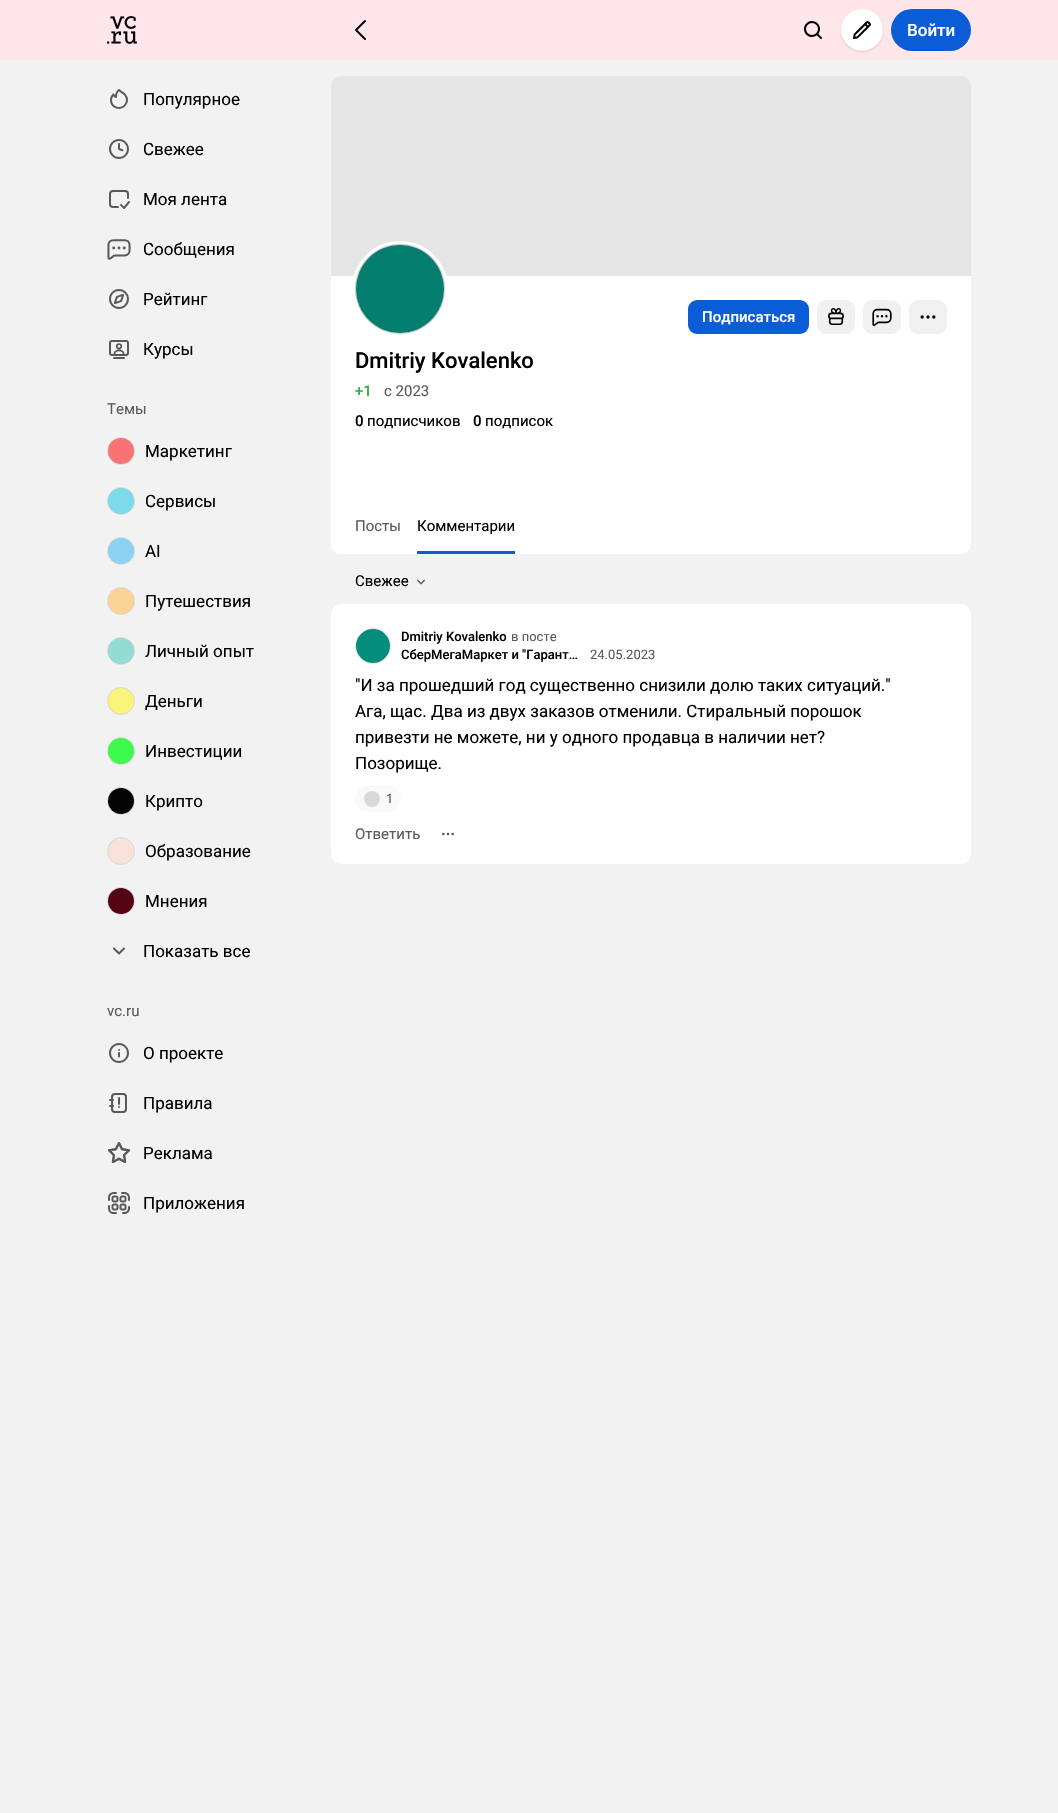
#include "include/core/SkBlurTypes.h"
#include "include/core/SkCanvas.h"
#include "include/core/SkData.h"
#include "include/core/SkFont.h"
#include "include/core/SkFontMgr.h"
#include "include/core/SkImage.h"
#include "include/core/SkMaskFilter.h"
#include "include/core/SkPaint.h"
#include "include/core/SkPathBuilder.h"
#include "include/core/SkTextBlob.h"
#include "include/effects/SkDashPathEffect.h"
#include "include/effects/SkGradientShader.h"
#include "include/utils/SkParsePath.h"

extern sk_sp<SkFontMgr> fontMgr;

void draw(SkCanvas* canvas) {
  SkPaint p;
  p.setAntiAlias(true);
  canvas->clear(SkColorSetRGB(242, 242, 242));
  p.setColor(SkColorSetRGB(255, 230, 235));
  canvas->drawRect(SkRect::MakeLTRB(0, 0, 1058, 60), p);
  canvas->drawImageRect(SkImages::DeferredFromEncodedData(SkData::MakeFromFileName("images/1.png")), SkRect::MakeLTRB(107, 16, 137, 44), SkSamplingOptions());
  canvas->drawImageRect(SkImages::DeferredFromEncodedData(SkData::MakeFromFileName("images/2.png")), SkRect::MakeLTRB(355, 20, 366, 40), SkSamplingOptions());
  canvas->drawImageRect(SkImages::DeferredFromEncodedData(SkData::MakeFromFileName("images/3.png")), SkRect::MakeLTRB(804, 21, 822, 39), SkSamplingOptions());
  p.setColor(SkColorSetARGB(26, 0, 0, 0));
  p.setMaskFilter(SkMaskFilter::MakeBlur(kNormal_SkBlurStyle, 1));
  canvas->drawRoundRect(SkRect::MakeLTRB(841, 10, 883, 52), 21, 21, p);
  p.setMaskFilter(nullptr);
  p.setColor(SK_ColorWHITE);
  canvas->drawCircle(862, 30, 21, p);
  p.setColor(SkColorSetARGB(15, 0, 0, 0));
  canvas->drawPath(SkPathBuilder().moveTo(883, 30).cubicTo(882, 57, 842, 57, 841, 30).cubicTo(840, 58, 884, 58, 883, 30).close().detach(), p);
  canvas->drawImageRect(SkImages::DeferredFromEncodedData(SkData::MakeFromFileName("images/4.png")), SkRect::MakeLTRB(853, 21, 871, 39), SkSamplingOptions());
  p.setColor(SkColorSetRGB(11, 93, 215));
  canvas->drawRoundRect(SkRect::MakeLTRB(891, 9, 971, 51), 21, 21, p);
  canvas->drawImageRect(SkImages::DeferredFromEncodedData(SkData::MakeFromFileName("images/5.png")), SkRect::MakeLTRB(110, 89, 128, 109), SkSamplingOptions());
  canvas->drawImageRect(SkImages::DeferredFromEncodedData(SkData::MakeFromFileName("images/6.png")), SkRect::MakeLTRB(109, 139, 129, 159), SkSamplingOptions());
  canvas->drawImageRect(SkImages::DeferredFromEncodedData(SkData::MakeFromFileName("images/7.png")), SkRect::MakeLTRB(109, 190, 130, 209), SkSamplingOptions());
  canvas->drawImageRect(SkImages::DeferredFromEncodedData(SkData::MakeFromFileName("images/8.png")), SkRect::MakeLTRB(107, 239, 131, 260), SkSamplingOptions());
  canvas->drawImageRect(SkImages::DeferredFromEncodedData(SkData::MakeFromFileName("images/9.png")), SkRect::MakeLTRB(109, 289, 129, 309), SkSamplingOptions());
  canvas->drawImageRect(SkImages::DeferredFromEncodedData(SkData::MakeFromFileName("images/10.png")), SkRect::MakeLTRB(109, 340, 129, 359), SkSamplingOptions());
  p.setColor(SkColorSetRGB(249, 115, 115));
  canvas->drawCircle(121, 451, 13, p);
  p.setStyle(SkPaint::kStroke_Style);
  p.setStrokeWidth(1);
  p.setColor(SkColorSetARGB(26, 0, 0, 0));
  canvas->drawCircle(121, 451, 13.5f, p);
  p.setStyle(SkPaint::kFill_Style);
  p.setColor(SkColorSetRGB(124, 218, 234));
  canvas->drawCircle(121, 501, 13, p);
  p.setStyle(SkPaint::kStroke_Style);
  p.setColor(SkColorSetARGB(26, 0, 0, 0));
  canvas->drawCircle(121, 501, 13.5f, p);
  p.setStyle(SkPaint::kFill_Style);
  p.setColor(SkColorSetRGB(141, 210, 241));
  canvas->drawCircle(121, 551, 13, p);
  p.setStyle(SkPaint::kStroke_Style);
  p.setColor(SkColorSetARGB(26, 0, 0, 0));
  canvas->drawCircle(121, 551, 13.5f, p);
  p.setStyle(SkPaint::kFill_Style);
  p.setColor(SkColorSetRGB(251, 211, 148));
  canvas->drawCircle(121, 601, 13, p);
  p.setStyle(SkPaint::kStroke_Style);
  p.setColor(SkColorSetARGB(26, 0, 0, 0));
  canvas->drawCircle(121, 601, 13.5f, p);
  p.setStyle(SkPaint::kFill_Style);
  p.setColor(SkColorSetRGB(147, 219, 211));
  canvas->drawCircle(121, 651, 13, p);
  p.setStyle(SkPaint::kStroke_Style);
  p.setColor(SkColorSetARGB(26, 0, 0, 0));
  canvas->drawCircle(121, 651, 13.5f, p);
  p.setStyle(SkPaint::kFill_Style);
  p.setColor(SkColorSetRGB(250, 243, 123));
  canvas->drawCircle(121, 701, 13, p);
  p.setStyle(SkPaint::kStroke_Style);
  p.setColor(SkColorSetARGB(26, 0, 0, 0));
  canvas->drawCircle(121, 701, 13.5f, p);
  p.setStyle(SkPaint::kFill_Style);
  p.setColor(SkColorSetRGB(60, 251, 76));
  canvas->drawCircle(121, 751, 13, p);
  p.setStyle(SkPaint::kStroke_Style);
  p.setColor(SkColorSetARGB(26, 0, 0, 0));
  canvas->drawCircle(121, 751, 13.5f, p);
  p.setStyle(SkPaint::kFill_Style);
  p.setColor(SkColorSetRGB(4, 4, 4));
  canvas->drawCircle(121, 801, 13, p);
  p.setStyle(SkPaint::kStroke_Style);
  p.setColor(SkColorSetARGB(26, 0, 0, 0));
  canvas->drawCircle(121, 801, 13.5f, p);
  p.setStyle(SkPaint::kFill_Style);
  p.setColor(SkColorSetRGB(247, 225, 217));
  canvas->drawCircle(121, 851, 13, p);
  p.setStyle(SkPaint::kStroke_Style);
  p.setColor(SkColorSetARGB(26, 0, 0, 0));
  canvas->drawCircle(121, 851, 13.5f, p);
  p.setStyle(SkPaint::kFill_Style);
  p.setColor(SkColorSetRGB(84, 4, 20));
  canvas->drawCircle(121, 901, 13, p);
  p.setStyle(SkPaint::kStroke_Style);
  p.setColor(SkColorSetARGB(26, 0, 0, 0));
  canvas->drawCircle(121, 901, 13.5f, p);
  canvas->drawImageRect(SkImages::DeferredFromEncodedData(SkData::MakeFromFileName("images/11.png")), SkRect::MakeLTRB(113, 947, 125, 955), SkSamplingOptions());
  canvas->drawImageRect(SkImages::DeferredFromEncodedData(SkData::MakeFromFileName("images/12.png")), SkRect::MakeLTRB(109, 1043, 129, 1063), SkSamplingOptions());
  canvas->drawImageRect(SkImages::DeferredFromEncodedData(SkData::MakeFromFileName("images/13.png")), SkRect::MakeLTRB(109, 1093, 127, 1113), SkSamplingOptions());
  canvas->drawImageRect(SkImages::DeferredFromEncodedData(SkData::MakeFromFileName("images/14.png")), SkRect::MakeLTRB(108, 1142, 130, 1163), SkSamplingOptions());
  canvas->drawImageRect(SkImages::DeferredFromEncodedData(SkData::MakeFromFileName("images/15.png")), SkRect::MakeLTRB(108, 1192, 130, 1214), SkSamplingOptions());
  p.setStyle(SkPaint::kFill_Style);
  p.setColor(SK_ColorWHITE);
  canvas->drawRoundRect(SkRect::MakeLTRB(331, 76, 971, 554), 10, 10, p);
  p.setColor(SkColorSetRGB(229, 229, 229));
  canvas->drawPath(SkPathBuilder().moveTo(341, 76).lineTo(961, 76).cubicTo(966.5f, 76, 971, 80.5f, 971, 86).lineTo(971, 276).lineTo(331, 276).lineTo(331, 86).cubicTo(331, 80.5f, 335.5f, 76, 341, 76).close().detach(), p);
  p.setStyle(SkPaint::kStroke_Style);
  p.setStrokeWidth(3);
  p.setColor(SK_ColorWHITE);
  canvas->drawCircle(400, 289, 46.5f, p);
  p.setStyle(SkPaint::kFill_Style);
  p.setColor(SkColorSetRGB(229, 229, 229));
  canvas->drawCircle(400, 289, 45, p);
  p.setColor(SkColorSetRGB(4, 140, 124));
  canvas->drawCircle(400, 289, 44, p);
  p.setColor(SkColorSetARGB(26, 0, 0, 0));
  canvas->drawPath(SkPathBuilder().moveTo(400, 244).cubicTo(375, 244, 355, 264, 355, 289).cubicTo(355, 314, 375, 334, 400, 334).cubicTo(425, 334, 445, 314, 445, 289).cubicTo(445, 264, 425, 244, 400, 244).close().detach(), p);
  p.setColor(SkColorSetRGB(11, 93, 215));
  canvas->drawRoundRect(SkRect::MakeLTRB(688, 300, 809, 334), 9, 9, p);
  p.setColor(SkColorSetRGB(240, 240, 240));
  canvas->drawRoundRect(SkRect::MakeLTRB(817, 300, 855, 334), 9, 9, p);
  canvas->drawImageRect(SkImages::DeferredFromEncodedData(SkData::MakeFromFileName("images/16.png")), SkRect::MakeLTRB(828, 308, 844, 325), SkSamplingOptions());
  canvas->drawRoundRect(SkRect::MakeLTRB(863, 300, 901, 334), 9, 9, p);
  canvas->drawImageRect(SkImages::DeferredFromEncodedData(SkData::MakeFromFileName("images/17.png")), SkRect::MakeLTRB(872, 308, 892, 326), SkSamplingOptions());
  canvas->drawRoundRect(SkRect::MakeLTRB(909, 300, 947, 334), 9, 9, p);
  canvas->drawImageRect(SkImages::DeferredFromEncodedData(SkData::MakeFromFileName("images/18.png")), SkRect::MakeLTRB(920, 315, 936, 319), SkSamplingOptions());
  p.setColor(SkColorSetRGB(11, 93, 215));
  canvas->drawRect(SkRect::MakeLTRB(417, 551, 515, 554), p);
  canvas->drawImageRect(SkImages::DeferredFromEncodedData(SkData::MakeFromFileName("images/19.png")), SkRect::MakeLTRB(417, 579, 425, 585), SkSamplingOptions());
  p.setColor(SK_ColorWHITE);
  canvas->drawRoundRect(SkRect::MakeLTRB(331, 604, 971, 864), 10, 10, p);
  p.setColor(SkColorSetRGB(4, 140, 124));
  canvas->drawCircle(373, 646, 17, p);
  p.setStyle(SkPaint::kStroke_Style);
  p.setStrokeWidth(1);
  p.setColor(SkColorSetARGB(26, 0, 0, 0));
  canvas->drawCircle(373, 646, 17.5f, p);
  p.setStyle(SkPaint::kFill_Style);
  p.setColor(SkColorSetRGB(249, 249, 249));
  canvas->drawRoundRect(SkRect::MakeLTRB(355, 786, 401, 812), 13, 13, p);
  p.setColor(SkColorSetRGB(217, 217, 217));
  canvas->drawCircle(372, 799, 8, p);
  canvas->drawImageRect(SkImages::DeferredFromEncodedData(SkData::MakeFromFileName("images/20.png")), SkRect::MakeLTRB(442, 832, 454, 836), SkSamplingOptions());
  SkFont font1(fontMgr->matchFamilyStyle("Roboto", SkFontStyle(500, SkFontStyle::kNormal_Width, SkFontStyle::kUpright_Slant)), 17);
  font1.setSubpixel(true);
  p.setColor(SK_ColorWHITE);
  canvas->drawString("Войти", 907, 36, font1, p);
  SkFont font2(fontMgr->matchFamilyStyle("Roboto", SkFontStyle::Normal()), 17);
  font2.setSubpixel(true);
  p.setColor(SK_ColorBLACK);
  canvas->drawString("Популярное", 143, 105, font2, p);
  canvas->drawString("Свежее", 143, 155, font2, p);
  canvas->drawString("Моя лента", 143, 205, font2, p);
  canvas->drawString("Сообщения", 143, 255, font2, p);
  canvas->drawString("Рейтинг", 143, 305, font2, p);
  canvas->drawString("Курсы", 143, 355, font2, p);
  SkFont font3(fontMgr->matchFamilyStyle("Roboto", SkFontStyle::Normal()), 15);
  font3.setSubpixel(true);
  p.setColor(SkColorSetRGB(89, 89, 89));
  canvas->drawString("Темы", 107, 414, font3, p);
  p.setColor(SK_ColorBLACK);
  canvas->drawString("Маркетинг", 145, 457, font2, p);
  canvas->drawString("Сервисы", 145, 507, font2, p);
  canvas->drawString("AI", 145, 557, font2, p);
  canvas->drawString("Путешествия", 145, 607, font2, p);
  canvas->drawString("Личный опыт", 145, 657, font2, p);
  canvas->drawString("Деньги", 145, 707, font2, p);
  canvas->drawString("Инвестиции", 145, 757, font2, p);
  canvas->drawString("Крипто", 145, 807, font2, p);
  canvas->drawString("Образование", 145, 857, font2, p);
  canvas->drawString("Мнения", 145, 907, font2, p);
  canvas->drawString("Показать все", 143, 957, font2, p);
  p.setColor(SkColorSetRGB(89, 89, 89));
  canvas->drawString("vc.ru", 107, 1016, font3, p);
  p.setColor(SK_ColorBLACK);
  canvas->drawString("О проекте", 143, 1059, font2, p);
  canvas->drawString("Правила", 143, 1109, font2, p);
  canvas->drawString("Реклама", 143, 1159, font2, p);
  canvas->drawString("Приложения", 143, 1209, font2, p);
  SkFont font4(fontMgr->matchFamilyStyle("Roboto", SkFontStyle(500, SkFontStyle::kNormal_Width, SkFontStyle::kUpright_Slant)), 15);
  font4.setSubpixel(true);
  p.setColor(SK_ColorWHITE);
  canvas->drawString("Подписаться", 702, 322, font4, p);
  SkFont font5(fontMgr->matchFamilyStyle("Roboto", SkFontStyle(500, SkFontStyle::kNormal_Width, SkFontStyle::kUpright_Slant)), 22);
  font5.setSubpixel(true);
  p.setColor(SK_ColorBLACK);
  canvas->drawString("Dmitriy Kovalenko", 355, 368, font5, p);
  p.setColor(SkColorSetRGB(48, 176, 61));
  canvas->drawString("+1", 355, 396, font4, p);
  p.setColor(SkColorSetRGB(89, 89, 89));
  canvas->drawString("с 2023", 384, 396, font3, p);
  p.setColor(SK_ColorBLACK);
  canvas->drawString("0", 355, 426, font4, p);
  canvas->drawString("подписчиков", 367, 426, font3, p);
  canvas->drawString("0", 473, 426, font4, p);
  canvas->drawString("подписок", 485, 426, font3, p);
  p.setColor(SkColorSetRGB(89, 89, 89));
  canvas->drawString("Посты", 355, 531, font3, p);
  p.setColor(SK_ColorBLACK);
  canvas->drawString("Комментарии", 417, 531, font3, p);
  canvas->drawString("Свежее", 355, 586, font3, p);
  SkFont font6(fontMgr->matchFamilyStyle("Roboto", SkFontStyle(500, SkFontStyle::kNormal_Width, SkFontStyle::kUpright_Slant)), 13);
  font6.setSubpixel(true);
  canvas->drawString("Dmitriy Kovalenko", 401, 641, font6, p);
  SkFont font7(fontMgr->matchFamilyStyle("Roboto", SkFontStyle::Normal()), 13);
  font7.setSubpixel(true);
  p.setColor(SkColorSetRGB(89, 89, 89));
  canvas->drawString("в посте", 511, 641, font7, p);
  p.setColor(SK_ColorBLACK);
  canvas->drawString("СберМегаМаркет и \"Гарант…", 401, 659, font6, p);
  p.setColor(SkColorSetRGB(89, 89, 89));
  canvas->drawString("24.05.2023", 590, 659, font7, p);
  p.setColor(SK_ColorBLACK);
  canvas->drawString("\"И за прошедший год существенно снизили долю таких ситуаций.\"", 355, 691, font2, p);
  canvas->drawString("Ага, щас. Два из двух заказов отменили. Стиральный порошок", 355, 717, font2, p);
  canvas->drawString("привезти не можете, ни у одного продавца в наличии нет?", 355, 743, font2, p);
  canvas->drawString("Позорище.", 355, 769, font2, p);
  p.setColor(SkColorSetRGB(89, 89, 89));
  canvas->drawString("1", 386, 803, font7, p);
  canvas->drawString("Ответить", 355, 839, font3, p);
}
